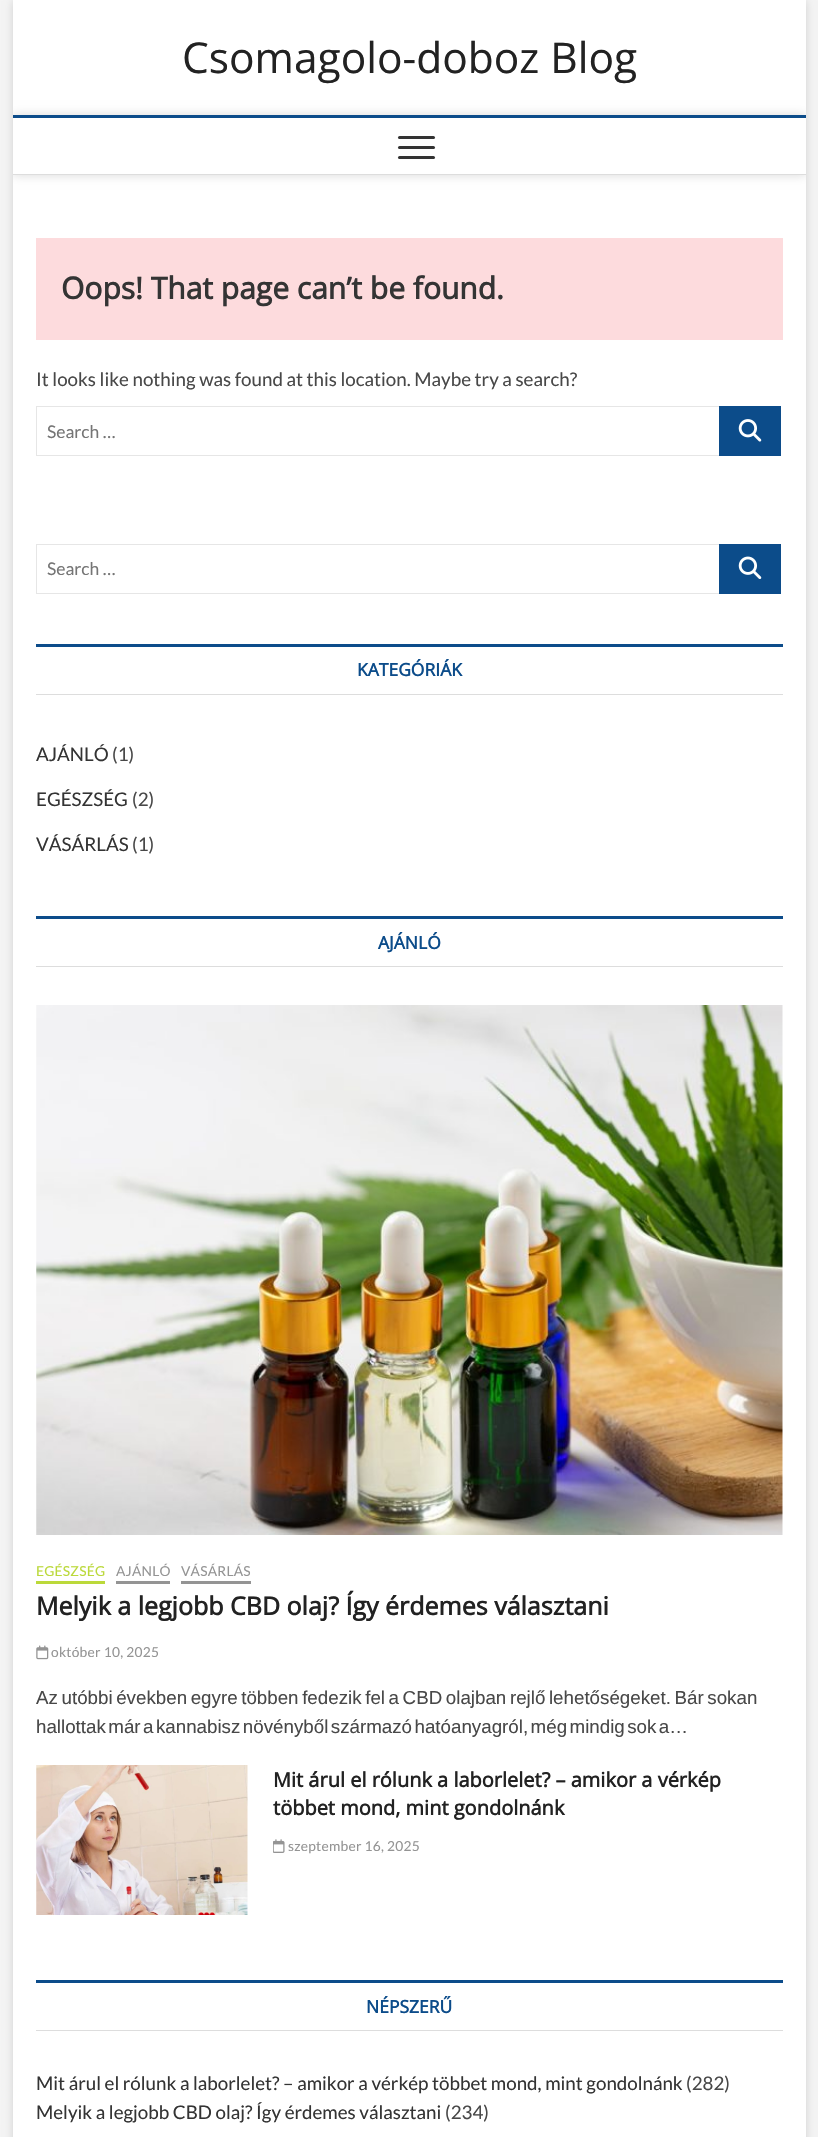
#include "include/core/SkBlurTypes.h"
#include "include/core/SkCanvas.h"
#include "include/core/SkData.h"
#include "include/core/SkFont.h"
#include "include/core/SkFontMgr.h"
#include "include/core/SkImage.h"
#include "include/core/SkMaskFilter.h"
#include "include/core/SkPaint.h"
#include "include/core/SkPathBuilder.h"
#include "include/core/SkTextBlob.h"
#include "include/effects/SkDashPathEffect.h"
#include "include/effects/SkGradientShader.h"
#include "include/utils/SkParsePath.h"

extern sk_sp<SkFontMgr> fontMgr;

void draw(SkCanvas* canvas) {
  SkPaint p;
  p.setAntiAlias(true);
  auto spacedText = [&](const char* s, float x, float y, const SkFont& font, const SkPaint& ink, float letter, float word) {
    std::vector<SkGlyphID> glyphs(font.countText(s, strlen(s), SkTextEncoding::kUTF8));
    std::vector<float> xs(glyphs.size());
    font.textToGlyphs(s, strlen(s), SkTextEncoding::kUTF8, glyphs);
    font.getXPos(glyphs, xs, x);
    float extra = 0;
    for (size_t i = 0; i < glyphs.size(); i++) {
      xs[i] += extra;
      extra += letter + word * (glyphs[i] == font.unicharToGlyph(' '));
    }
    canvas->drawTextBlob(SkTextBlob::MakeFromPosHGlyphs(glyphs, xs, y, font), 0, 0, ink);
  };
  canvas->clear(SkColorSetRGB(244, 244, 244));
  p.setColor(SkColorSetARGB(38, 0, 0, 0));
  p.setMaskFilter(SkMaskFilter::MakeBlur(kNormal_SkBlurStyle, 4));
  canvas->drawRect(SkRect::MakeLTRB(13, 1, 806, 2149), p);
  p.setMaskFilter(nullptr);
  p.setColor(SK_ColorWHITE);
  canvas->drawRect(SkRect::MakeLTRB(13, 0, 806, 2137), p);
  canvas->save();
  canvas->clipRect(SkRect::MakeLTRB(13, 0, 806, 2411));
  canvas->clipPath(SkPathBuilder(SkPathFillType::kEvenOdd).moveTo(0, 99).lineTo(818, 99).lineTo(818, 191).lineTo(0, 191).close().moveTo(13, 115).lineTo(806, 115).lineTo(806, 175).lineTo(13, 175).close().detach(), true);
  p.setColor(SkColorSetARGB(38, 0, 0, 0));
  p.setMaskFilter(SkMaskFilter::MakeBlur(kNormal_SkBlurStyle, 5));
  canvas->drawRect(SkRect::MakeLTRB(13, 115, 806, 175), p);
  p.setMaskFilter(nullptr);
  canvas->restore();
  p.setColor(SkColorSetRGB(12, 76, 138));
  canvas->drawRect(SkRect::MakeLTRB(13, 115, 806, 118), p);
  p.setColor(SkColorSetRGB(221, 221, 221));
  canvas->drawRect(SkRect::MakeLTRB(13, 174, 806, 175), p);
  p.setColor(SkColorSetRGB(51, 51, 51));
  canvas->drawRoundRect(SkRect::MakeLTRB(398, 146, 435, 149), 1.5f, 1.5f, p);
  canvas->drawRoundRect(SkRect::MakeLTRB(398, 136, 435, 139), 1.5f, 1.5f, p);
  canvas->drawRoundRect(SkRect::MakeLTRB(398, 156, 435, 159), 1.5f, 1.5f, p);
  p.setColor(SkColorSetRGB(253, 219, 221));
  canvas->drawRect(SkRect::MakeLTRB(36, 238, 783, 340), p);
  p.setStyle(SkPaint::kStroke_Style);
  p.setStrokeWidth(1);
  p.setColor(SkColorSetRGB(230, 230, 230));
  canvas->drawRect(SkRect::MakeLTRB(36.5f, 406.5f, 719.5f, 455.5f), p);
  p.setStyle(SkPaint::kFill_Style);
  p.setColor(SkColorSetRGB(12, 76, 138));
  canvas->drawRect(SkRect::MakeLTRB(719, 406, 781, 456), p);
  canvas->drawImageRect(SkImages::DeferredFromEncodedData(SkData::MakeFromFileName("images/1.png")), SkRect::MakeLTRB(738, 419, 762, 442), SkSamplingOptions());
  p.setStyle(SkPaint::kStroke_Style);
  p.setColor(SkColorSetRGB(230, 230, 230));
  canvas->drawRect(SkRect::MakeLTRB(36.5f, 544.5f, 719.5f, 593.5f), p);
  p.setStyle(SkPaint::kFill_Style);
  p.setColor(SkColorSetRGB(12, 76, 138));
  canvas->drawRect(SkRect::MakeLTRB(719, 544, 781, 594), p);
  canvas->drawImageRect(SkImages::DeferredFromEncodedData(SkData::MakeFromFileName("images/2.png")), SkRect::MakeLTRB(738, 556, 762, 579), SkSamplingOptions());
  canvas->drawRect(SkRect::MakeLTRB(36, 644, 783, 647), p);
  p.setColor(SkColorSetRGB(221, 221, 221));
  canvas->drawRect(SkRect::MakeLTRB(36, 694, 783, 695), p);
  p.setColor(SkColorSetRGB(12, 76, 138));
  canvas->drawRect(SkRect::MakeLTRB(36, 916, 783, 919), p);
  p.setColor(SkColorSetRGB(221, 221, 221));
  canvas->drawRect(SkRect::MakeLTRB(36, 966, 783, 967), p);
  canvas->drawImageRect(SkImages::DeferredFromEncodedData(SkData::MakeFromFileName("images/3.png")), SkRect::MakeLTRB(36, 1005, 783, 1535), SkSamplingOptions());
  p.setColor(SkColorSetRGB(187, 217, 58));
  canvas->drawRect(SkRect::MakeLTRB(36, 1581, 105, 1584), p);
  p.setColor(SkColorSetRGB(148, 148, 148));
  canvas->drawRect(SkRect::MakeLTRB(116, 1581, 170, 1584), p);
  canvas->drawRect(SkRect::MakeLTRB(181, 1581, 251, 1584), p);
  canvas->drawImageRect(SkImages::DeferredFromEncodedData(SkData::MakeFromFileName("images/4.png")), SkRect::MakeLTRB(36, 1645, 49, 1660), SkSamplingOptions());
  canvas->drawImageRect(SkImages::DeferredFromEncodedData(SkData::MakeFromFileName("images/5.png")), SkRect::MakeLTRB(36, 1765, 248, 1915), SkSamplingOptions());
  canvas->drawImageRect(SkImages::DeferredFromEncodedData(SkData::MakeFromFileName("images/6.png")), SkRect::MakeLTRB(273, 1839, 285, 1853), SkSamplingOptions());
  p.setColor(SkColorSetRGB(12, 76, 138));
  canvas->drawRect(SkRect::MakeLTRB(36, 1980, 783, 1983), p);
  p.setColor(SkColorSetRGB(221, 221, 221));
  canvas->drawRect(SkRect::MakeLTRB(36, 2030, 783, 2031), p);
  SkFont font1(fontMgr->matchFamilyStyle("Open Sans", SkFontStyle::Normal()), 42.5f);
  font1.setSubpixel(true);
  p.setColor(SkColorSetRGB(34, 34, 34));
  canvas->drawString("Csomagolo-doboz Blog", 182, 73, font1, p);
  SkFont font2(fontMgr->matchFamilyStyle("Open Sans", SkFontStyle::Bold()), 30);
  font2.setSubpixel(true);
  p.setColor(SkColorSetRGB(52, 52, 52));
  canvas->drawString("Oops! That page can’t be found.", 61, 299, font2, p);
  SkFont font3(fontMgr->matchFamilyStyle("Lato", SkFontStyle::Normal()), 18.75f);
  font3.setSubpixel(true);
  p.setColor(SkColorSetRGB(72, 72, 72));
  canvas->drawString("It looks like nothing was found at this location. Maybe try a search?", 36, 386, font3, p);
  SkFont font4(fontMgr->matchFamilyStyle("Lato", SkFontStyle::Normal()), 17.5f);
  font4.setSubpixel(true);
  p.setColor(SkColorSetRGB(117, 117, 117));
  canvas->drawString("Search …", 47, 438, font4, p);
  canvas->drawString("Search …", 47, 575, font4, p);
  SkFont font5(fontMgr->matchFamilyStyle("Open Sans", SkFontStyle::Bold()), 17.5f);
  font5.setSubpixel(true);
  p.setColor(SkColorSetRGB(12, 76, 138));
  canvas->drawString("KATEGÓRIÁK", 357, 676, font5, p);
  p.setColor(SkColorSetRGB(52, 52, 52));
  canvas->drawString("AJÁNLÓ", 36, 761, font3, p);
  p.setColor(SkColorSetRGB(72, 72, 72));
  canvas->drawString("(1)", 112, 761, font3, p);
  p.setColor(SkColorSetRGB(52, 52, 52));
  canvas->drawString("EGÉSZSÉG", 36, 806, font3, p);
  p.setColor(SkColorSetRGB(72, 72, 72));
  canvas->drawString("(2)", 132, 806, font3, p);
  p.setColor(SkColorSetRGB(52, 52, 52));
  canvas->drawString("VÁSÁRLÁS", 36, 851, font3, p);
  p.setColor(SkColorSetRGB(72, 72, 72));
  canvas->drawString("(1)", 132, 851, font3, p);
  p.setColor(SkColorSetRGB(12, 76, 138));
  canvas->drawString("AJÁNLÓ", 378, 949, font5, p);
  SkFont font6(fontMgr->matchFamilyStyle("Lato", SkFontStyle::Normal()), 13.75f);
  font6.setSubpixel(true);
  p.setColor(SkColorSetRGB(187, 217, 58));
  spacedText("EGÉSZSÉG", 36, 1576, font6, p, 0.25f, 0);
  p.setColor(SkColorSetRGB(148, 148, 148));
  spacedText("AJÁNLÓ", 116, 1576, font6, p, 0.25f, 0);
  spacedText("VÁSÁRLÁS", 181, 1576, font6, p, 0.25f, 0);
  SkFont font7(fontMgr->matchFamilyStyle("Open Sans", SkFontStyle::Bold()), 25);
  font7.setSubpixel(true);
  p.setColor(SkColorSetRGB(34, 34, 34));
  canvas->drawString("Melyik a legjobb CBD olaj? Így érdemes választani", 36, 1615, font7, p);
  p.setColor(SkColorSetRGB(148, 148, 148));
  spacedText("október 10, 2025", 51, 1657, font6, p, 0.25f, 0);
  SkFont font8(fontMgr->matchFamilyStyle("Liberation Sans", SkFontStyle::Normal()), 18.75f);
  font8.setSubpixel(true);
  p.setColor(SkColorSetRGB(72, 72, 72));
  spacedText("Az utóbbi években egyre többen fedezik fel a CBD olajban rejlő lehetőségeket. Bár sokan", 36, 1704, font8, p, 0, -1.6f);
  spacedText("hallottak már a kannabisz növényből származó hatóanyagról, még mindig sok a…", 36, 1733, font8, p, 0, -2.75f);
  SkFont font9(fontMgr->matchFamilyStyle("Open Sans", SkFontStyle::Bold()), 20);
  font9.setSubpixel(true);
  p.setColor(SkColorSetRGB(34, 34, 34));
  canvas->drawString("Mit árul el rólunk a laborlelet? – amikor a vérkép", 273, 1787, font9, p);
  canvas->drawString("többet mond, mint gondolnánk", 273, 1815, font9, p);
  p.setColor(SkColorSetRGB(148, 148, 148));
  spacedText("szeptember 16, 2025", 288, 1851, font6, p, 0.25f, 0);
  p.setColor(SkColorSetRGB(12, 76, 138));
  canvas->drawString("NÉPSZERŰ", 366, 2013, font5, p);
  p.setColor(SkColorSetRGB(52, 52, 52));
  canvas->drawString("Mit árul el rólunk a laborlelet? – amikor a vérkép többet mond, mint gondolnánk", 36, 2090, font3, p);
  p.setColor(SkColorSetRGB(72, 72, 72));
  canvas->drawString("(282)", 686, 2090, font3, p);
  p.setColor(SkColorSetRGB(52, 52, 52));
  canvas->drawString("Melyik a legjobb CBD olaj? Így érdemes választani", 36, 2119, font3, p);
  p.setColor(SkColorSetRGB(72, 72, 72));
  canvas->drawString("(234)", 445, 2119, font3, p);
}
